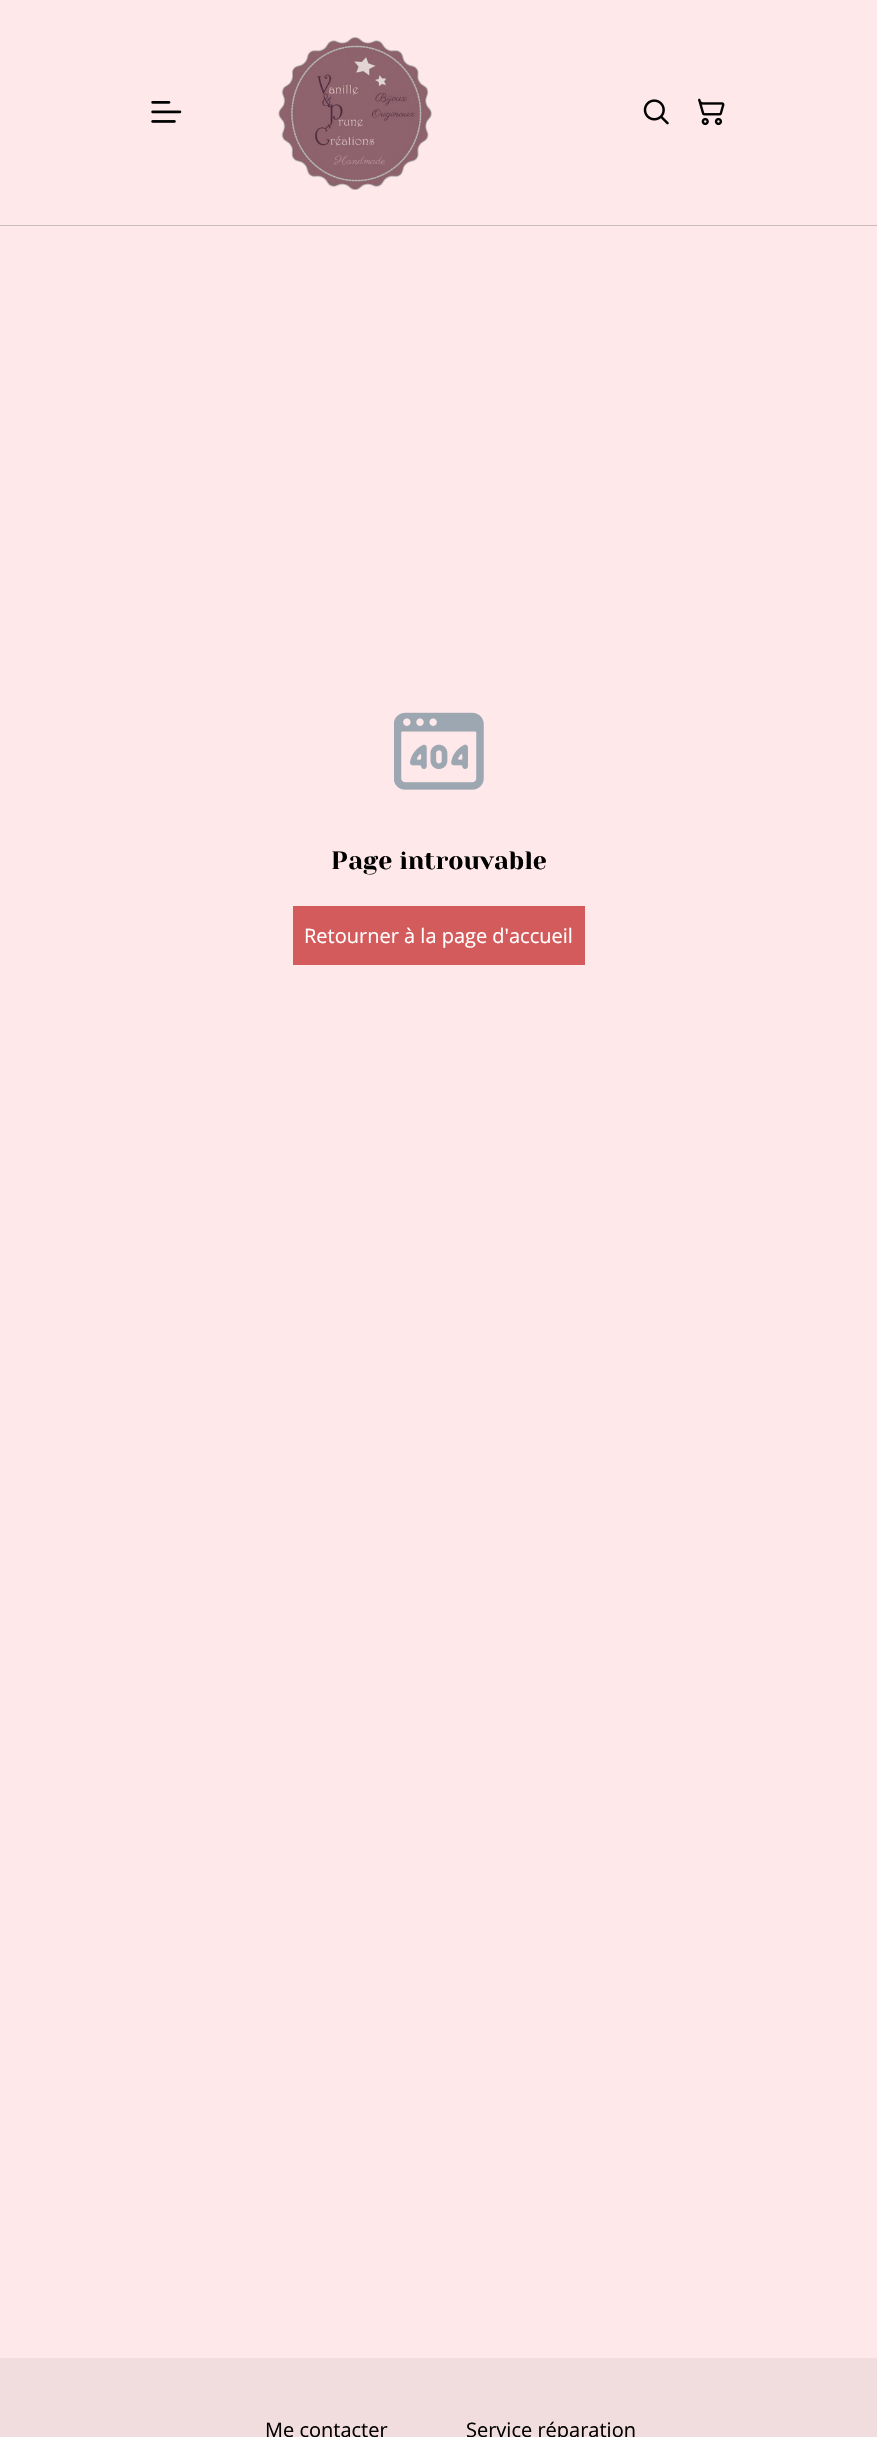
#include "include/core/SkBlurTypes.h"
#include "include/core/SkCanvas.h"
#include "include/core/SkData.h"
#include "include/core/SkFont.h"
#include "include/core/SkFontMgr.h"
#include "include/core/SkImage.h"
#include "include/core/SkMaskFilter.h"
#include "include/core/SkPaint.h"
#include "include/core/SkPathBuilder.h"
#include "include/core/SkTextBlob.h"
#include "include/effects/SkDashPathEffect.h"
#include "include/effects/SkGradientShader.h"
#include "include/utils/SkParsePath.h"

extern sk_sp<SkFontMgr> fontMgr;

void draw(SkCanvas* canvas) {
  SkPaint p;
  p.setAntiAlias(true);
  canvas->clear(SkColorSetRGB(254, 232, 234));
  p.setColor(SkColorSetRGB(203, 186, 187));
  canvas->drawRect(SkRect::MakeLTRB(0, 225, 877, 226), p);
  canvas->drawImageRect(SkImages::DeferredFromEncodedData(SkData::MakeFromFileName("images/1.png")), SkRect::MakeLTRB(151, 101, 182, 123), SkSamplingOptions());
  canvas->drawImageRect(SkImages::DeferredFromEncodedData(SkData::MakeFromFileName("images/2.png")), SkRect::MakeLTRB(278, 37, 432, 190), SkSamplingOptions());
  canvas->drawImageRect(SkImages::DeferredFromEncodedData(SkData::MakeFromFileName("images/3.png")), SkRect::MakeLTRB(643, 99, 669, 125), SkSamplingOptions());
  canvas->drawImageRect(SkImages::DeferredFromEncodedData(SkData::MakeFromFileName("images/4.png")), SkRect::MakeLTRB(698, 98, 725, 126), SkSamplingOptions());
  canvas->drawImageRect(SkImages::DeferredFromEncodedData(SkData::MakeFromFileName("images/5.png")), SkRect::MakeLTRB(394, 712, 484, 790), SkSamplingOptions());
  p.setColor(SkColorSetRGB(212, 91, 91));
  canvas->drawRect(SkRect::MakeLTRB(293, 906, 585, 965), p);
  p.setColor(SkColorSetRGB(241, 220, 222));
  canvas->drawRect(SkRect::MakeLTRB(0, 2358, 877, 2437), p);
  SkFont font1(fontMgr->matchFamilyStyle("Yeseva One", SkFontStyle::Normal()), 25);
  font1.setSubpixel(true);
  p.setColor(SK_ColorBLACK);
  canvas->drawString("Page introuvable", 331, 869, font1, p);
  SkFont font2(fontMgr->matchFamilyStyle("Open Sans", SkFontStyle::Normal()), 20);
  font2.setSubpixel(true);
  p.setColor(SK_ColorWHITE);
  canvas->drawString("Retourner à la page d'accueil", 304, 943, font2, p);
  p.setColor(SK_ColorBLACK);
  canvas->drawString("Me contacter", 265, 2437, font2, p);
  canvas->drawString("Service réparation", 466, 2437, font2, p);
}
